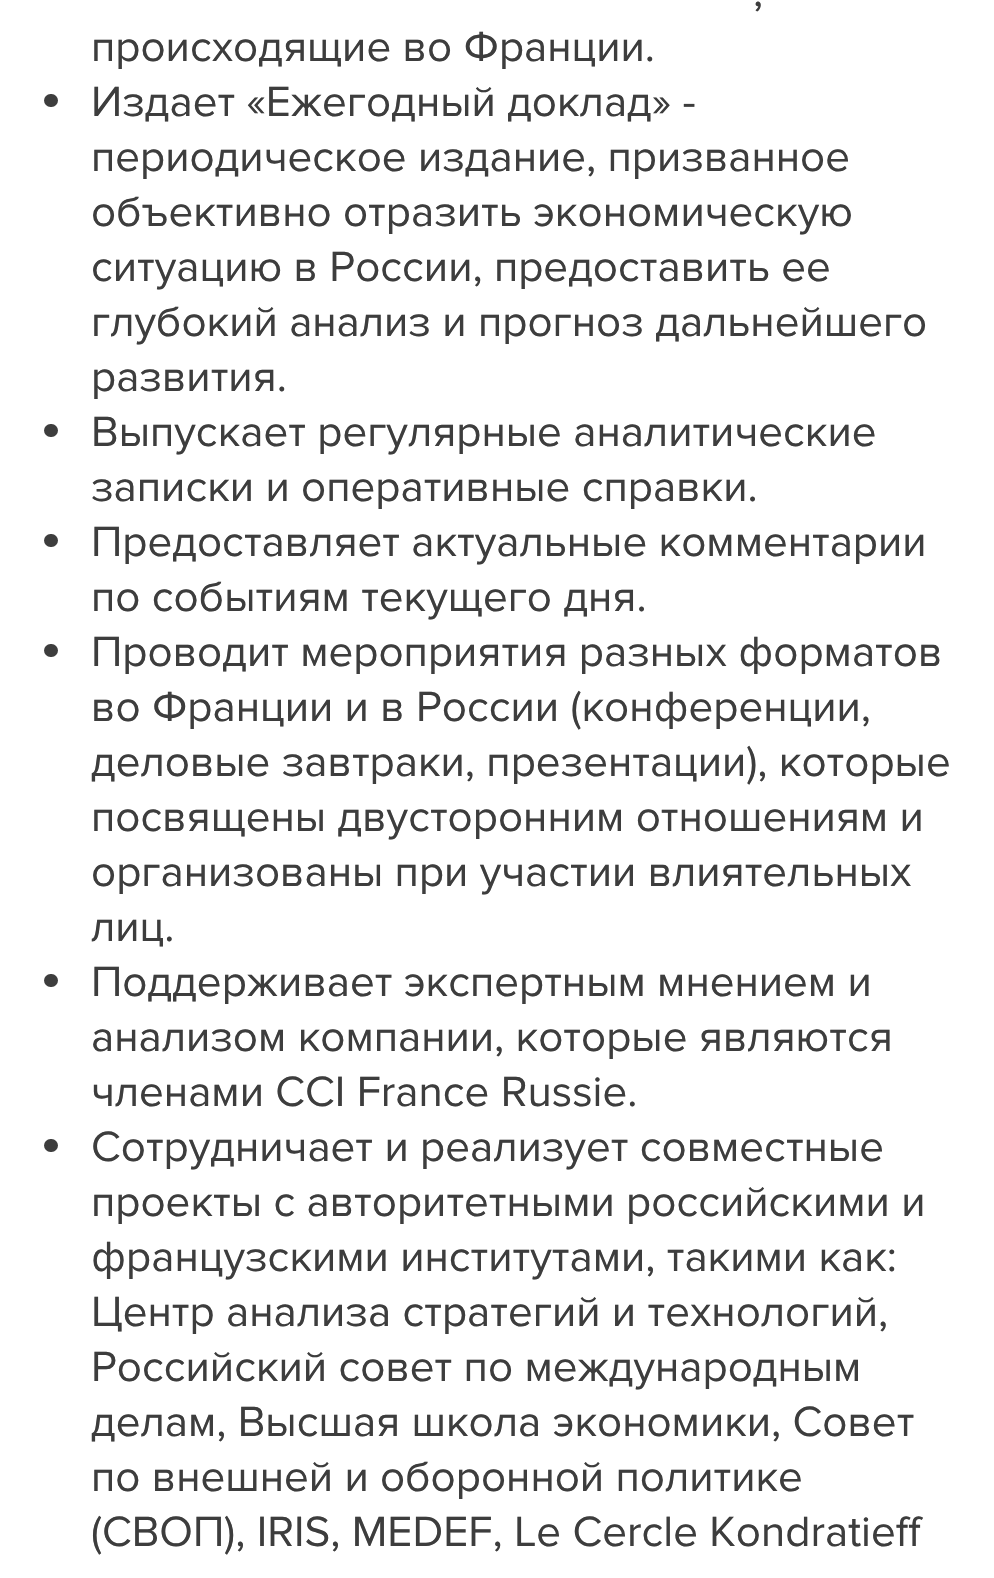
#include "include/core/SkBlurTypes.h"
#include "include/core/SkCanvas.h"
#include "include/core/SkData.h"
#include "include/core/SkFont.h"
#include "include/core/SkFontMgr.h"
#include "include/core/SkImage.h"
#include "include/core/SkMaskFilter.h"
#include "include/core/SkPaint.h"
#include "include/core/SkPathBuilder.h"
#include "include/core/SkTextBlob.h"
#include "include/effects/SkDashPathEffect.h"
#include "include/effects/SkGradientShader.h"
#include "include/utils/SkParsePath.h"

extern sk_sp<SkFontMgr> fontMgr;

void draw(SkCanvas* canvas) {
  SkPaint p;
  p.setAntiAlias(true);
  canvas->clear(SK_ColorWHITE);
  p.setColor(SkColorSetRGB(61, 61, 61));
  canvas->drawRoundRect(SkRect::MakeLTRB(44, 94, 58, 107), 6.5f, 6.5f, p);
  canvas->drawRoundRect(SkRect::MakeLTRB(44, 424, 58, 437), 6.5f, 6.5f, p);
  canvas->drawRoundRect(SkRect::MakeLTRB(44, 534, 58, 547), 6.5f, 6.5f, p);
  canvas->drawRoundRect(SkRect::MakeLTRB(44, 644, 58, 657), 6.5f, 6.5f, p);
  canvas->drawRoundRect(SkRect::MakeLTRB(44, 974, 58, 987), 6.5f, 6.5f, p);
  canvas->drawRoundRect(SkRect::MakeLTRB(44, 1139, 58, 1152), 6.5f, 6.5f, p);
  SkFont font1(fontMgr->matchFamilyStyle("Proxima Nova", SkFontStyle::Normal()), 44);
  font1.setSubpixel(true);
  canvas->drawString(",", 753, 6, font1, p);
  canvas->drawString("происходящие во Франции.", 91, 61, font1, p);
  canvas->drawString("Издает «Ежегодный доклад» -", 91, 116, font1, p);
  canvas->drawString("периодическое издание, призванное", 91, 171, font1, p);
  canvas->drawString("объективно отразить экономическую", 91, 226, font1, p);
  canvas->drawString("ситуацию в России, предоставить ее", 91, 281, font1, p);
  canvas->drawString("глубокий анализ и прогноз дальнейшего", 91, 336, font1, p);
  canvas->drawString("развития.", 91, 391, font1, p);
  canvas->drawString("Выпускает регулярные аналитические", 91, 446, font1, p);
  canvas->drawString("записки и оперативные справки.", 91, 501, font1, p);
  canvas->drawString("Предоставляет актуальные комментарии", 91, 556, font1, p);
  canvas->drawString("по событиям текущего дня.", 91, 611, font1, p);
  canvas->drawString("Проводит мероприятия разных форматов", 91, 666, font1, p);
  canvas->drawString("во Франции и в России (конференции,", 91, 721, font1, p);
  canvas->drawString("деловые завтраки, презентации), которые", 91, 776, font1, p);
  canvas->drawString("посвящены двусторонним отношениям и", 91, 831, font1, p);
  canvas->drawString("организованы при участии влиятельных", 91, 886, font1, p);
  canvas->drawString("лиц.", 91, 941, font1, p);
  canvas->drawString("Поддерживает экспертным мнением и", 91, 996, font1, p);
  canvas->drawString("анализом компании, которые являются", 91, 1051, font1, p);
  canvas->drawString("членами CCI France Russie.", 91, 1106, font1, p);
  canvas->drawString("Сотрудничает и реализует совместные", 91, 1161, font1, p);
  canvas->drawString("проекты с авторитетными российскими и", 91, 1216, font1, p);
  canvas->drawString("французскими институтами, такими как:", 91, 1271, font1, p);
  canvas->drawString("Центр анализа стратегий и технологий,", 91, 1326, font1, p);
  canvas->drawString("Российский совет по международным", 91, 1381, font1, p);
  canvas->drawString("делам, Высшая школа экономики, Совет", 91, 1436, font1, p);
  canvas->drawString("по внешней и оборонной политике", 91, 1491, font1, p);
  canvas->drawString("(СВОП), IRIS, MEDEF, Le Cercle Kondratieff", 91, 1546, font1, p);
}
